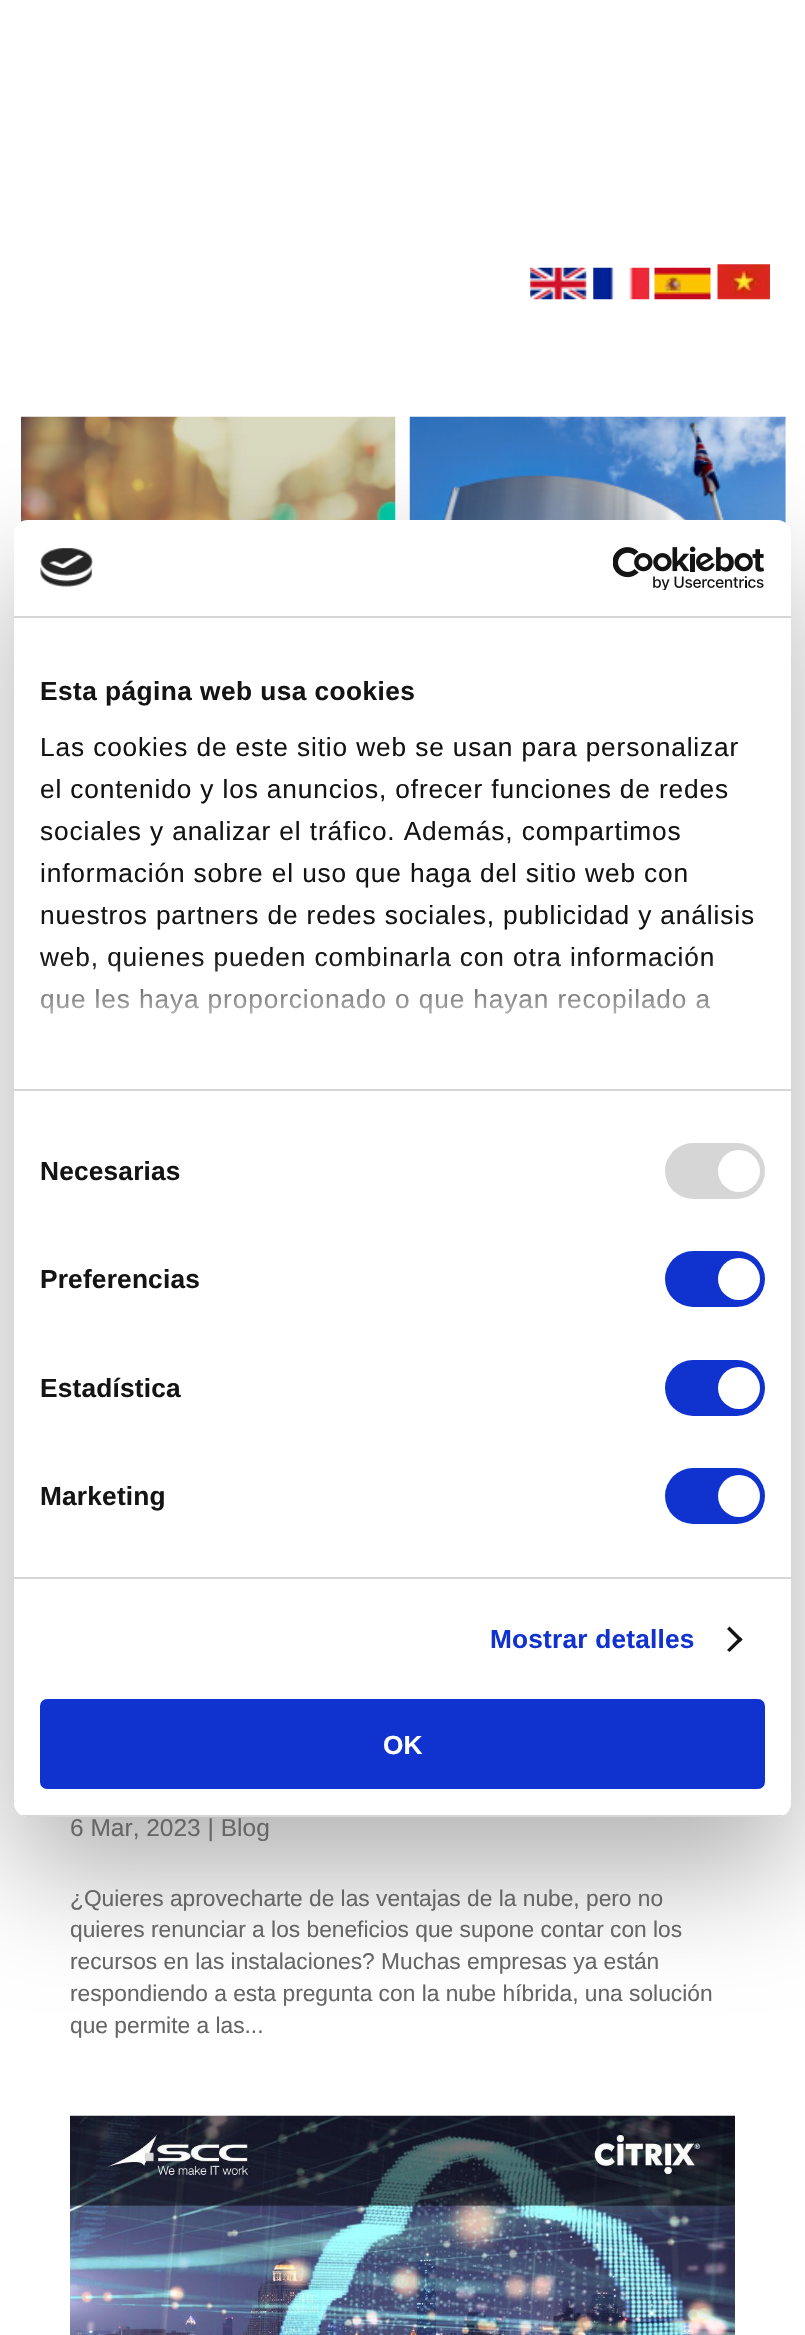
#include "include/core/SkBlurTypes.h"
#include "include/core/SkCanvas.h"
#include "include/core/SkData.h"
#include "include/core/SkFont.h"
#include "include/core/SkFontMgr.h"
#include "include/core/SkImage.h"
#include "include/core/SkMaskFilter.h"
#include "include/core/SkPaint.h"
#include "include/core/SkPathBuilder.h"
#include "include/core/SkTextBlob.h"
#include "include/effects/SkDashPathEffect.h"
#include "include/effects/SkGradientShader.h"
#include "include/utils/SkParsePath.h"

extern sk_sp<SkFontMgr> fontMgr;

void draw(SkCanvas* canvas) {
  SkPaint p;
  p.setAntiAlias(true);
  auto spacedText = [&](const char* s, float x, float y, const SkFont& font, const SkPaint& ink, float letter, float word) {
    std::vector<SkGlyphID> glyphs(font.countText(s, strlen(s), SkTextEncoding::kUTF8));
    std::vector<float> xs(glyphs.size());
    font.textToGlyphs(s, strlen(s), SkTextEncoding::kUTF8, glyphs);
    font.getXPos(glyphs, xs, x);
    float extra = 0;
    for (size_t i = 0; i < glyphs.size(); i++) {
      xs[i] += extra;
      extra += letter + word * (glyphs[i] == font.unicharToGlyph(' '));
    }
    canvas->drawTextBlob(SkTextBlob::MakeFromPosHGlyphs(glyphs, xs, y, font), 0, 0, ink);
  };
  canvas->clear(SK_ColorWHITE);
  canvas->drawImageRect(SkImages::DeferredFromEncodedData(SkData::MakeFromFileName("images/7.png")), SkRect::MakeLTRB(21, 416, 396, 522), SkSamplingOptions());
  canvas->drawImageRect(SkImages::DeferredFromEncodedData(SkData::MakeFromFileName("images/8.png")), SkRect::MakeLTRB(409, 416, 786, 524), SkSamplingOptions());
  p.setColor(SkColorSetARGB(77, 0, 0, 0));
  p.setMaskFilter(SkMaskFilter::MakeBlur(kNormal_SkBlurStyle, 59.5f));
  canvas->drawRoundRect(SkRect::MakeLTRB(14, 576, 791, 1873), 14, 14, p);
  p.setMaskFilter(nullptr);
  p.setColor(SK_ColorWHITE);
  canvas->drawRoundRect(SkRect::MakeLTRB(14, 520, 791, 1817), 14, 14, p);
  p.setColor(SkColorSetRGB(214, 214, 214));
  canvas->drawRect(SkRect::MakeLTRB(14, 616, 791, 618), p);
  canvas->drawImageRect(SkImages::DeferredFromEncodedData(SkData::MakeFromFileName("images/1.png")), SkRect::MakeLTRB(40, 548, 93, 587), SkSamplingOptions());
  canvas->drawImageRect(SkImages::DeferredFromEncodedData(SkData::MakeFromFileName("images/2.png")), SkRect::MakeLTRB(613, 546, 765, 590), SkSamplingOptions());
  canvas->drawRect(SkRect::MakeLTRB(14, 1089, 791, 1091), p);
  canvas->drawRect(SkRect::MakeLTRB(14, 1577, 791, 1579), p);
  canvas->drawRoundRect(SkRect::MakeLTRB(665, 1143, 765, 1199), 28, 28, p);
  p.setColor(SK_ColorWHITE);
  canvas->drawCircle(739, 1171, 21, p);
  p.setColor(SkColorSetRGB(16, 50, 207));
  canvas->drawRoundRect(SkRect::MakeLTRB(665, 1251, 765, 1307), 28, 28, p);
  p.setColor(SK_ColorWHITE);
  canvas->drawCircle(739, 1279, 21, p);
  p.setColor(SkColorSetRGB(16, 50, 207));
  canvas->drawRoundRect(SkRect::MakeLTRB(665, 1360, 765, 1416), 28, 28, p);
  p.setColor(SK_ColorWHITE);
  canvas->drawCircle(739, 1388, 21, p);
  p.setColor(SkColorSetRGB(16, 50, 207));
  canvas->drawRoundRect(SkRect::MakeLTRB(665, 1468, 765, 1524), 28, 28, p);
  p.setColor(SK_ColorWHITE);
  canvas->drawCircle(739, 1496, 21, p);
  p.setColor(SkColorSetRGB(20, 20, 20));
  canvas->drawPath(SkPathBuilder().moveTo(729.5f, 1626.5f).lineTo(742.5f, 1639.5f).lineTo(740, 1642).lineTo(727, 1629).close().detach(), p);
  canvas->drawPath(SkPathBuilder().moveTo(740, 1637).lineTo(742.5f, 1639.5f).lineTo(729.5f, 1652).lineTo(727, 1650).close().detach(), p);
  canvas->save();
  canvas->clipPath(SkPathBuilder().moveTo(28, 520).lineTo(777, 520).cubicTo(784.5f, 520, 791, 526.5f, 791, 534).lineTo(791, 1803).cubicTo(791, 1810.5f, 784.5f, 1817, 777, 1817).lineTo(28, 1817).cubicTo(20.5f, 1817, 14, 1810.5f, 14, 1803).lineTo(14, 534).cubicTo(14, 526.5f, 20.5f, 520, 28, 520).close().detach(), true);
  p.setColor(SkColorSetRGB(214, 214, 214));
  canvas->drawRect(SkRect::MakeLTRB(14, 1815, 791, 1817), p);
  canvas->restore();
  p.setColor(SkColorSetRGB(16, 50, 207));
  canvas->drawRoundRect(SkRect::MakeLTRB(42, 1701, 763, 1787), 5, 5, p);
  p.setStyle(SkPaint::kStroke_Style);
  p.setStrokeWidth(4);
  canvas->drawRoundRect(SkRect::MakeLTRB(42, 1701, 763, 1787), 5, 5, p);
  canvas->drawImageRect(SkImages::DeferredFromEncodedData(SkData::MakeFromFileName("images/3.png")), SkRect::MakeLTRB(530, 267, 587, 300), SkSamplingOptions());
  canvas->drawImageRect(SkImages::DeferredFromEncodedData(SkData::MakeFromFileName("images/4.png")), SkRect::MakeLTRB(593, 267, 650, 300), SkSamplingOptions());
  canvas->drawImageRect(SkImages::DeferredFromEncodedData(SkData::MakeFromFileName("images/5.png")), SkRect::MakeLTRB(654, 267, 711, 300), SkSamplingOptions());
  canvas->drawImageRect(SkImages::DeferredFromEncodedData(SkData::MakeFromFileName("images/6.png")), SkRect::MakeLTRB(717, 264, 770, 300), SkSamplingOptions());
  canvas->drawImageRect(SkImages::DeferredFromEncodedData(SkData::MakeFromFileName("images/9.png")), SkRect::MakeLTRB(70, 2115, 735, 2335), SkSamplingOptions());
  SkFont font1(fontMgr->matchFamilyStyle("Liberation Sans", SkFontStyle::Bold()), 26.25f);
  font1.setSubpixel(true);
  p.setStyle(SkPaint::kFill_Style);
  p.setColor(SkColorSetRGB(20, 20, 20));
  spacedText("Esta página web usa cookies", 40, 700, font1, p, 0.45f, 0);
  SkFont font2(fontMgr->matchFamilyStyle("Liberation Sans", SkFontStyle::Normal()), 26.25f);
  font2.setSubpixel(true);
  spacedText("Las cookies de este sitio web se usan para personalizar", 40, 756, font2, p, 0.88f, 0);
  spacedText("el contenido y los anuncios, ofrecer funciones de redes", 40, 798, font2, p, 0.88f, 0);
  spacedText("sociales y analizar el tráfico. Además, compartimos", 40, 840, font2, p, 0.88f, 0);
  spacedText("información sobre el uso que haga del sitio web con", 40, 882, font2, p, 0.88f, 0);
  spacedText("nuestros partners de redes sociales, publicidad y análisis", 40, 924, font2, p, 0.88f, 0);
  spacedText("web, quienes pueden combinarla con otra información", 40, 966, font2, p, 0.88f, 0);
  spacedText("que les haya proporcionado o que hayan recopilado a", 40, 1008, font2, p, 0.88f, 0);
  {
    const SkColor colors[] = {SK_ColorWHITE, SkColorSetARGB(204, 255, 255, 255), SkColorSetARGB(0, 255, 255, 255)};
    const float stops[] = {0, 0.5f, 1};
    const SkPoint ends[] = {{391, 1089}, {391, 958}};
    p.setShader(SkGradientShader::MakeLinear(ends, colors, stops, 3, SkTileMode::kClamp));
    p.setAlpha(255);
  }
  canvas->drawRect(SkRect::MakeLTRB(41, 960, 713, 1014), p);
  p.setShader(nullptr);
  p.setColor(SkColorSetRGB(20, 20, 20));
  spacedText("Necesarias", 40, 1180, font1, p, 0.2f, 0);
  spacedText("Preferencias", 40, 1288, font1, p, 0.2f, 0);
  spacedText("Estadística", 40, 1397, font1, p, 0.2f, 0);
  spacedText("Marketing", 40, 1505, font1, p, 0.2f, 0);
  p.setColor(SkColorSetRGB(16, 50, 207));
  spacedText("Mostrar detalles", 490, 1648, font1, p, 0.2f, 0);
  p.setColor(SK_ColorWHITE);
  canvas->drawString("OK", 383, 1754, font1, p);
  SkFont font3(fontMgr->matchFamilyStyle("Liberation Sans", SkFontStyle::Normal()), 24.5f);
  font3.setSubpixel(true);
  p.setColor(SkColorSetRGB(102, 102, 102));
  canvas->drawString("6 Mar, 2023 | Blog", 70, 1836, font3, p);
  SkFont font4(fontMgr->matchFamilyStyle("Liberation Sans", SkFontStyle::Normal()), 22.75f);
  font4.setSubpixel(true);
  canvas->drawString("¿Quieres aprovecharte de las ventajas de la nube, pero no", 70, 1906, font4, p);
  canvas->drawString("quieres renunciar a los beneficios que supone contar con los", 70, 1937, font4, p);
  canvas->drawString("recursos en las instalaciones? Muchas empresas ya están", 70, 1969, font4, p);
  canvas->drawString("respondiendo a esta pregunta con la nube híbrida, una solución", 70, 2001, font4, p);
  canvas->drawString("que permite a las...", 70, 2033, font4, p);
}
